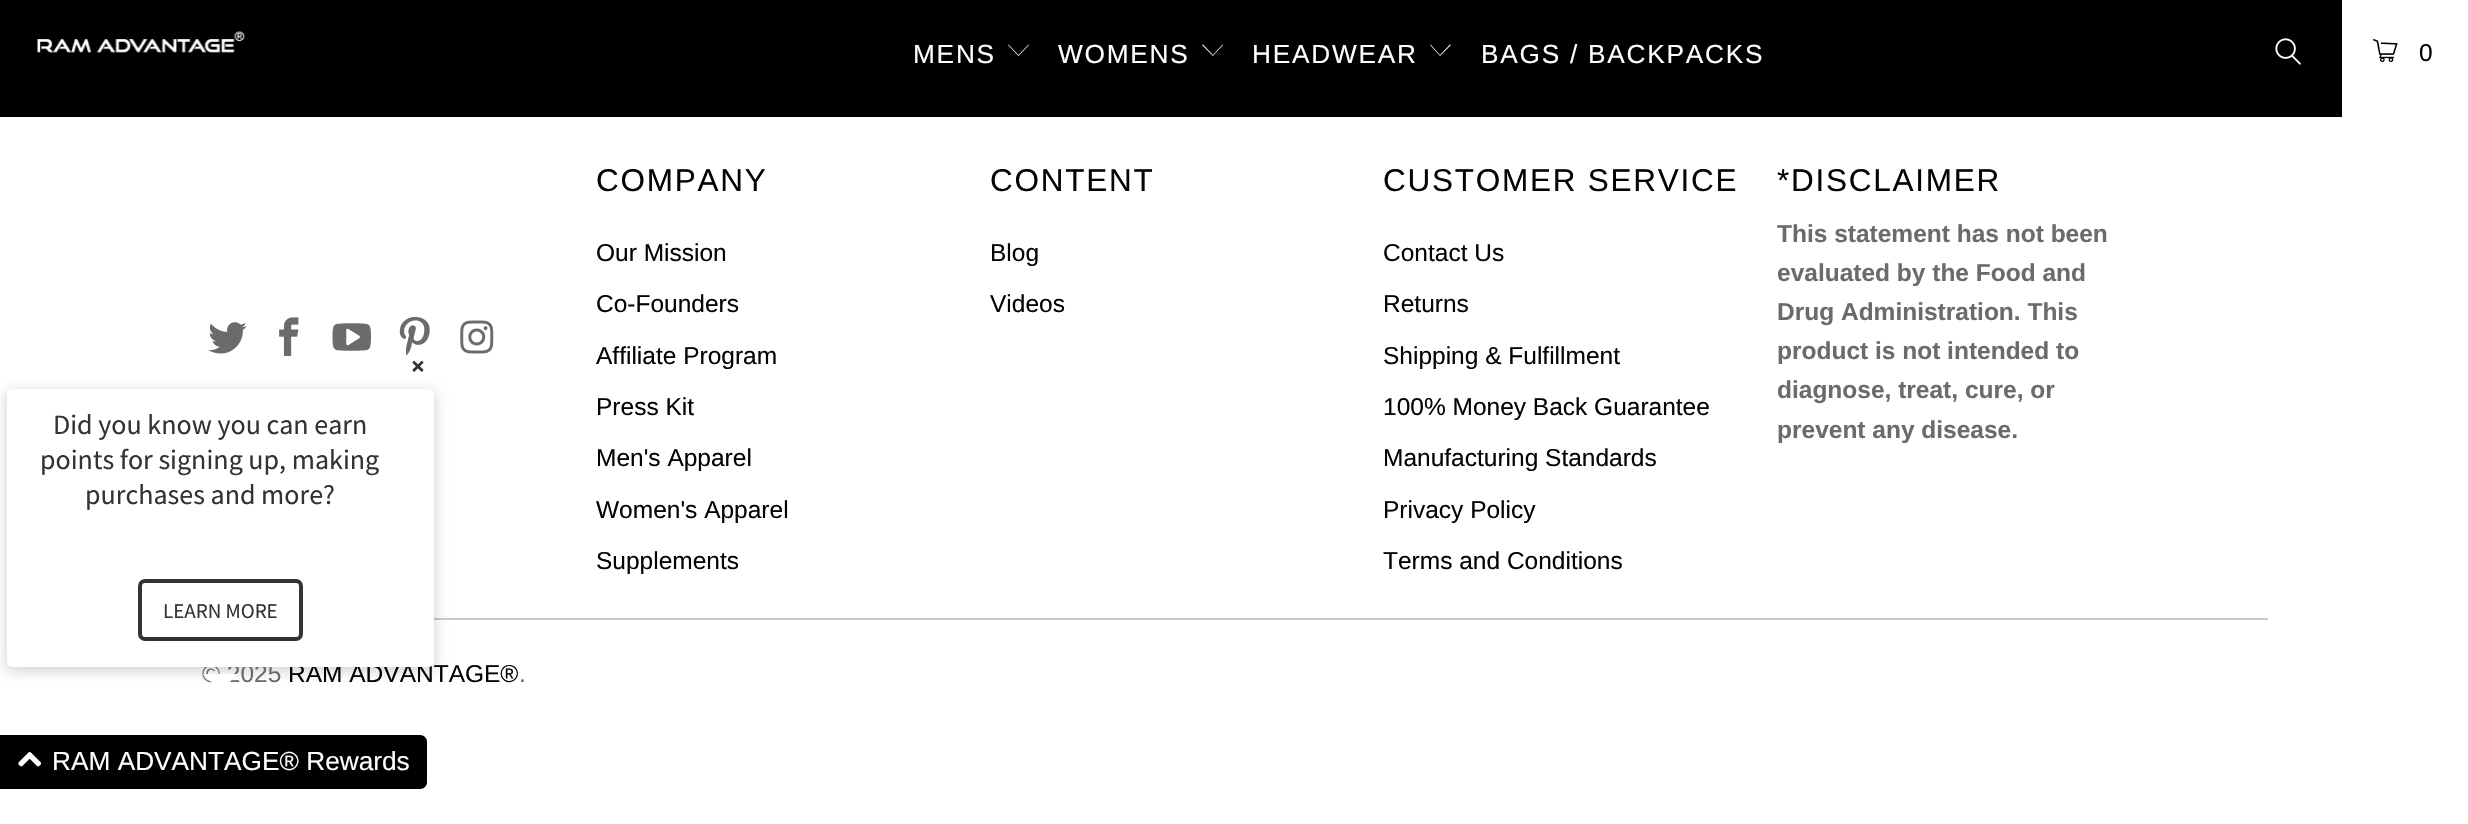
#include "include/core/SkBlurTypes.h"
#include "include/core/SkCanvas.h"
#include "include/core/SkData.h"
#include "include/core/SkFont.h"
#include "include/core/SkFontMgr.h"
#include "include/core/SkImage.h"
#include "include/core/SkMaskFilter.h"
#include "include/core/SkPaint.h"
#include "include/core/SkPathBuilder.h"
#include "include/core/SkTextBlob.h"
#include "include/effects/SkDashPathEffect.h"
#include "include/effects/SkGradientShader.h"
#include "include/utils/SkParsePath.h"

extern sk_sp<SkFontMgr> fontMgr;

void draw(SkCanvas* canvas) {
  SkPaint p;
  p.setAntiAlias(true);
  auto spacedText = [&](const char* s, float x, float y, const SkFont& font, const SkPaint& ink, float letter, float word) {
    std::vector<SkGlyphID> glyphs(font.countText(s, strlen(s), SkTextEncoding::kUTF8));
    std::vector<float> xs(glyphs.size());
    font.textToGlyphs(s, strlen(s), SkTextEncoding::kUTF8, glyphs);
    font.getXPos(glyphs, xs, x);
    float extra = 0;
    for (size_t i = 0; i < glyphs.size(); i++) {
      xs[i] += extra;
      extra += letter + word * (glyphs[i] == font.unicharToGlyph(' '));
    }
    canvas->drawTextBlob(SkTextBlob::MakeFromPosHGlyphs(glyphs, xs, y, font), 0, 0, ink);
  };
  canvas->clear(SK_ColorWHITE);
  p.setColor(SK_ColorBLACK);
  canvas->drawRect(SkRect::MakeLTRB(0, 0, 2342, 117), p);
  canvas->drawImageRect(SkImages::DeferredFromEncodedData(SkData::MakeFromFileName("images/1.png")), SkRect::MakeLTRB(36, 31, 245, 53), SkSamplingOptions());
  p.setColor(SK_ColorWHITE);
  canvas->drawPath(SkPathBuilder().moveTo(1018.5f, 56).lineTo(1008, 45).lineTo(1008.5f, 44.5f).lineTo(1018.5f, 55).lineTo(1028.5f, 44.5f).lineTo(1029, 45).close().detach(), p);
  canvas->drawPath(SkPathBuilder().moveTo(1213, 56).lineTo(1202, 45).lineTo(1203, 44.5f).lineTo(1213, 55).lineTo(1222.5f, 44.5f).lineTo(1223, 45).close().detach(), p);
  canvas->drawPath(SkPathBuilder().moveTo(1440, 56).lineTo(1430, 45).lineTo(1430.5f, 44.5f).lineTo(1440, 55).lineTo(1450, 44.5f).lineTo(1451, 45).close().detach(), p);
  canvas->drawImageRect(SkImages::DeferredFromEncodedData(SkData::MakeFromFileName("images/2.png")), SkRect::MakeLTRB(2275, 38, 2301, 65), SkSamplingOptions());
  canvas->drawImageRect(SkImages::DeferredFromEncodedData(SkData::MakeFromFileName("images/3.png")), SkRect::MakeLTRB(2373, 39, 2398, 62), SkSamplingOptions());
  canvas->drawImageRect(SkImages::DeferredFromEncodedData(SkData::MakeFromFileName("images/4.png")), SkRect::MakeLTRB(208, 322, 247, 354), SkSamplingOptions());
  canvas->drawImageRect(SkImages::DeferredFromEncodedData(SkData::MakeFromFileName("images/5.png")), SkRect::MakeLTRB(279, 317, 299, 356), SkSamplingOptions());
  canvas->drawImageRect(SkImages::DeferredFromEncodedData(SkData::MakeFromFileName("images/6.png")), SkRect::MakeLTRB(332, 323, 371, 351), SkSamplingOptions());
  canvas->drawImageRect(SkImages::DeferredFromEncodedData(SkData::MakeFromFileName("images/7.png")), SkRect::MakeLTRB(399, 316, 430, 356), SkSamplingOptions());
  canvas->drawImageRect(SkImages::DeferredFromEncodedData(SkData::MakeFromFileName("images/8.png")), SkRect::MakeLTRB(460, 320, 494, 354), SkSamplingOptions());
  p.setColor(SkColorSetRGB(204, 204, 204));
  canvas->drawRect(SkRect::MakeLTRB(434, 618, 2268, 620), p);
  p.setColor(SkColorSetARGB(51, 0, 0, 0));
  p.setMaskFilter(SkMaskFilter::MakeBlur(kNormal_SkBlurStyle, 7));
  canvas->drawRoundRect(SkRect::MakeLTRB(7, 392, 434, 670), 5, 5, p);
  p.setMaskFilter(nullptr);
  p.setColor(SK_ColorBLACK);
  canvas->drawPath(SkPathBuilder().moveTo(0, 735).lineTo(420, 735).cubicTo(424, 735, 427, 738, 427, 742).lineTo(427, 782).cubicTo(427, 786, 424, 789, 420, 789).lineTo(0, 789).close().detach(), p);
  canvas->drawImageRect(SkImages::DeferredFromEncodedData(SkData::MakeFromFileName("images/9.png")), SkRect::MakeLTRB(18, 752, 42, 767), SkSamplingOptions());
  SkFont font1(fontMgr->matchFamilyStyle("Liberation Sans", SkFontStyle::Normal()), 26.25f);
  font1.setSubpixel(true);
  p.setColor(SK_ColorWHITE);
  spacedText("MENS", 913, 63, font1, p, 1.75f, 0);
  spacedText("WOMENS", 1058, 63, font1, p, 1.75f, 0);
  spacedText("HEADWEAR", 1252, 63, font1, p, 1.75f, 0);
  spacedText("BAGS / BACKPACKS", 1481, 63, font1, p, 1.75f, 0);
  SkFont font2(fontMgr->matchFamilyStyle("Liberation Sans", SkFontStyle::Normal()), 24.5f);
  font2.setSubpixel(true);
  p.setColor(SkColorSetRGB(4, 4, 4));
  spacedText("0", 2419, 61, font2, p, 1.75f, 0);
  SkFont font3(fontMgr->matchFamilyStyle("Liberation Sans", SkFontStyle::Normal()), 31.5f);
  font3.setSubpixel(true);
  spacedText("COMPANY", 596, 191, font3, p, 1.75f, 0);
  canvas->drawString("Our Mission", 596, 261, font2, p);
  canvas->drawString("Co-Founders", 596, 312, font2, p);
  canvas->drawString("Affiliate Program", 596, 364, font2, p);
  canvas->drawString("Press Kit", 596, 415, font2, p);
  canvas->drawString("Men's Apparel", 596, 466, font2, p);
  canvas->drawString("Women's Apparel", 596, 518, font2, p);
  canvas->drawString("Supplements", 596, 569, font2, p);
  spacedText("CONTENT", 990, 191, font3, p, 1.75f, 0);
  canvas->drawString("Blog", 990, 261, font2, p);
  canvas->drawString("Videos", 990, 312, font2, p);
  spacedText("CUSTOMER SERVICE", 1383, 191, font3, p, 1.75f, 0);
  canvas->drawString("Contact Us", 1383, 261, font2, p);
  canvas->drawString("Returns", 1383, 312, font2, p);
  canvas->drawString("Shipping & Fulfillment", 1383, 364, font2, p);
  canvas->drawString("100% Money Back Guarantee", 1383, 415, font2, p);
  canvas->drawString("Manufacturing Standards", 1383, 466, font2, p);
  canvas->drawString("Privacy Policy", 1383, 518, font2, p);
  canvas->drawString("Terms and Conditions", 1383, 569, font2, p);
  spacedText("*DISCLAIMER", 1777, 191, font3, p, 1.75f, 0);
  SkFont font4(fontMgr->matchFamilyStyle("Liberation Sans", SkFontStyle::Bold()), 24.5f);
  font4.setSubpixel(true);
  p.setColor(SkColorSetRGB(107, 107, 107));
  canvas->drawString("This statement has not been", 1777, 242, font4, p);
  canvas->drawString("evaluated by the Food and", 1777, 281, font4, p);
  canvas->drawString("Drug Administration. This", 1777, 320, font4, p);
  canvas->drawString("product is not intended to", 1777, 359, font4, p);
  canvas->drawString("diagnose, treat, cure, or", 1777, 398, font4, p);
  canvas->drawString("prevent any disease.", 1777, 438, font4, p);
  canvas->drawString("© 2025", 202, 682, font2, p);
  p.setColor(SkColorSetRGB(4, 4, 4));
  canvas->drawString("RAM ADVANTAGE®", 288, 682, font2, p);
  p.setColor(SkColorSetRGB(107, 107, 107));
  canvas->drawString(".", 519, 682, font2, p);
  SkFont font5(fontMgr->matchFamilyStyle("Source Sans Pro", SkFontStyle::Bold()), 26.25f);
  font5.setSubpixel(true);
  p.setColor(SkColorSetRGB(51, 51, 51));
  canvas->drawString("×", 411, 375, font5, p);
  p.setColor(SK_ColorWHITE);
  canvas->drawRoundRect(SkRect::MakeLTRB(7, 389, 434, 667), 5, 5, p);
  SkFont font6(fontMgr->matchFamilyStyle("Source Sans Pro", SkFontStyle::Normal()), 28);
  font6.setSubpixel(true);
  p.setColor(SkColorSetRGB(51, 51, 51));
  canvas->drawString("Did you know you can earn", 53, 434, font6, p);
  canvas->drawString("points for signing up, making", 40, 469, font6, p);
  canvas->drawString("purchases and more?", 85, 504, font6, p);
  p.setStyle(SkPaint::kStroke_Style);
  p.setStrokeWidth(4);
  canvas->drawRoundRect(SkRect::MakeLTRB(140, 581, 301, 639), 5, 5, p);
  SkFont font7(fontMgr->matchFamilyStyle("Source Sans Pro", SkFontStyle::Normal()), 21);
  font7.setSubpixel(true);
  p.setStyle(SkPaint::kFill_Style);
  canvas->drawString("LEARN MORE", 163, 618, font7, p);
  p.setColor(SK_ColorWHITE);
  canvas->drawPath(SkPathBuilder().moveTo(203, 674).lineTo(238, 674).lineTo(220.5f, 691).close().detach(), p);
  canvas->drawString("RAM ADVANTAGE® Rewards", 52, 770, font1, p);
}
